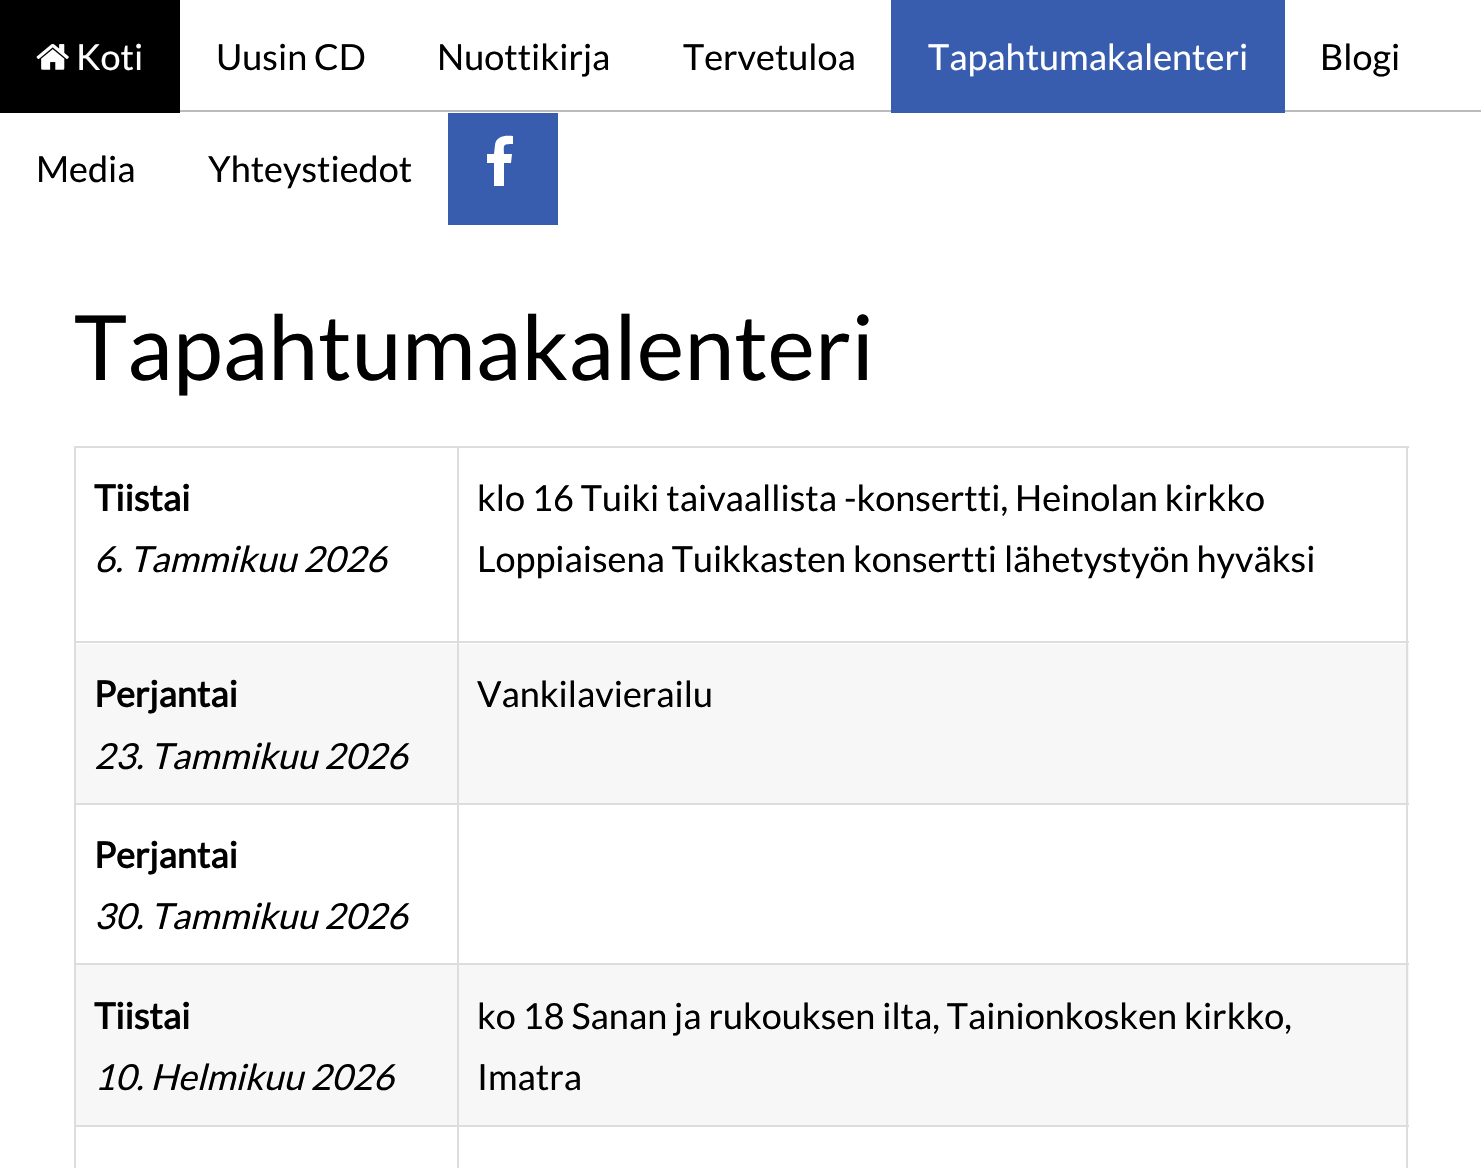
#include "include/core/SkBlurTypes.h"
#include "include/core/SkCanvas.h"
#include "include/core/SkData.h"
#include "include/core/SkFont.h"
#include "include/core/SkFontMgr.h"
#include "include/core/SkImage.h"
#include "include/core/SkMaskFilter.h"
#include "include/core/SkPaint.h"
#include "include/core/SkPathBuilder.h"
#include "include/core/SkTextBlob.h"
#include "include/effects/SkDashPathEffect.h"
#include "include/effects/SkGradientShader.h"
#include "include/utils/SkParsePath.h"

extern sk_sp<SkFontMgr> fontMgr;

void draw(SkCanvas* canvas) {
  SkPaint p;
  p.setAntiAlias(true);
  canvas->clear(SK_ColorWHITE);
  p.setColor(SkColorSetRGB(187, 187, 187));
  canvas->drawRect(SkRect::MakeLTRB(180, 110, 1481, 112), p);
  p.setColor(SK_ColorBLACK);
  canvas->drawRect(SkRect::MakeLTRB(0, 0, 180, 113), p);
  canvas->drawImageRect(SkImages::DeferredFromEncodedData(SkData::MakeFromFileName("images/1.png")), SkRect::MakeLTRB(36, 44, 69, 70), SkSamplingOptions());
  p.setColor(SkColorSetRGB(56, 93, 174));
  canvas->drawRect(SkRect::MakeLTRB(891, 0, 1285, 113), p);
  canvas->drawRect(SkRect::MakeLTRB(448, 113, 558, 225), p);
  p.setColor(SK_ColorWHITE);
  canvas->drawPath(SkPathBuilder().moveTo(513, 136).cubicTo(505, 135, 496, 136, 495, 145).lineTo(494, 154).lineTo(487, 154).lineTo(487, 163).lineTo(494, 163).lineTo(494, 186).lineTo(504, 186).lineTo(504, 163).lineTo(511, 163).lineTo(512, 154).lineTo(504, 154).cubicTo(504, 145, 502, 144, 513, 144).close().detach(), p);
  p.setColor(SkColorSetRGB(221, 221, 221));
  canvas->drawRect(SkRect::MakeLTRB(74, 1125, 1409, 1127), p);
  canvas->drawRect(SkRect::MakeLTRB(1406, 1125, 1408, 1168), p);
  canvas->drawRect(SkRect::MakeLTRB(74, 1125, 76, 1168), p);
  canvas->drawRect(SkRect::MakeLTRB(74, 446, 1409, 448), p);
  canvas->drawRect(SkRect::MakeLTRB(74, 641, 1409, 643), p);
  canvas->drawRect(SkRect::MakeLTRB(74, 803, 1409, 805), p);
  canvas->drawRect(SkRect::MakeLTRB(74, 963, 1409, 965), p);
  canvas->drawRect(SkRect::MakeLTRB(457, 446, 459, 1168), p);
  p.setColor(SkColorSetRGB(247, 247, 247));
  canvas->drawRect(SkRect::MakeLTRB(459, 644, 1409, 803), p);
  canvas->drawRect(SkRect::MakeLTRB(459, 965, 1409, 1125), p);
  p.setColor(SkColorSetRGB(221, 221, 221));
  canvas->drawRect(SkRect::MakeLTRB(1406, 963, 1408, 1127), p);
  canvas->drawRect(SkRect::MakeLTRB(1406, 803, 1408, 965), p);
  canvas->drawRect(SkRect::MakeLTRB(1406, 641, 1408, 806), p);
  canvas->drawRect(SkRect::MakeLTRB(1406, 446, 1408, 644), p);
  canvas->drawRect(SkRect::MakeLTRB(74, 963, 76, 1127), p);
  canvas->drawRect(SkRect::MakeLTRB(74, 803, 76, 965), p);
  canvas->drawRect(SkRect::MakeLTRB(74, 641, 76, 806), p);
  canvas->drawRect(SkRect::MakeLTRB(74, 446, 76, 644), p);
  p.setColor(SkColorSetRGB(247, 247, 247));
  canvas->drawRect(SkRect::MakeLTRB(76, 644, 457, 803), p);
  canvas->drawRect(SkRect::MakeLTRB(76, 965, 457, 1125), p);
  SkFont font1(fontMgr->matchFamilyStyle("Lato", SkFontStyle::Normal()), 36);
  font1.setSubpixel(true);
  p.setColor(SK_ColorWHITE);
  canvas->drawString("Koti", 76, 70, font1, p);
  p.setColor(SK_ColorBLACK);
  canvas->drawString("Uusin CD", 216, 70, font1, p);
  canvas->drawString("Nuottikirja", 437, 70, font1, p);
  canvas->drawString("Tervetuloa", 683, 70, font1, p);
  p.setColor(SK_ColorWHITE);
  canvas->drawString("Tapahtumakalenteri", 928, 70, font1, p);
  p.setColor(SK_ColorBLACK);
  canvas->drawString("Blogi", 1320, 70, font1, p);
  canvas->drawString("Media", 36, 182, font1, p);
  canvas->drawString("Yhteystiedot", 208, 182, font1, p);
  SkFont font2(fontMgr->matchFamilyStyle("Lato", SkFontStyle::Normal()), 90);
  font2.setSubpixel(true);
  canvas->drawString("Tapahtumakalenteri", 74, 380, font2, p);
  SkFont font3(fontMgr->matchFamilyStyle("Lato", SkFontStyle::Bold()), 36);
  font3.setSubpixel(true);
  canvas->drawString("Tiistai", 94, 511, font3, p);
  SkFont font4(fontMgr->matchFamilyStyle("Lato", SkFontStyle::Italic()), 36);
  font4.setSubpixel(true);
  canvas->drawString("6. Tammikuu 2026", 94, 572, font4, p);
  canvas->drawString("klo 16 Tuiki taivaallista -konsertti, Heinolan kirkko", 477, 511, font1, p);
  canvas->drawString("Loppiaisena Tuikkasten konsertti lähetystyön hyväksi", 477, 572, font1, p);
  canvas->drawString("Perjantai", 94, 707, font3, p);
  canvas->drawString("23. Tammikuu 2026", 94, 769, font4, p);
  canvas->drawString("Vankilavierailu", 477, 707, font1, p);
  canvas->drawString("Perjantai", 94, 868, font3, p);
  canvas->drawString("30. Tammikuu 2026", 94, 929, font4, p);
  canvas->drawString("Tiistai", 94, 1029, font3, p);
  canvas->drawString("10. Helmikuu 2026", 94, 1090, font4, p);
  canvas->drawString("ko 18 Sanan ja rukouksen ilta, Tainionkosken kirkko,", 477, 1029, font1, p);
  canvas->drawString("Imatra", 477, 1090, font1, p);
}
